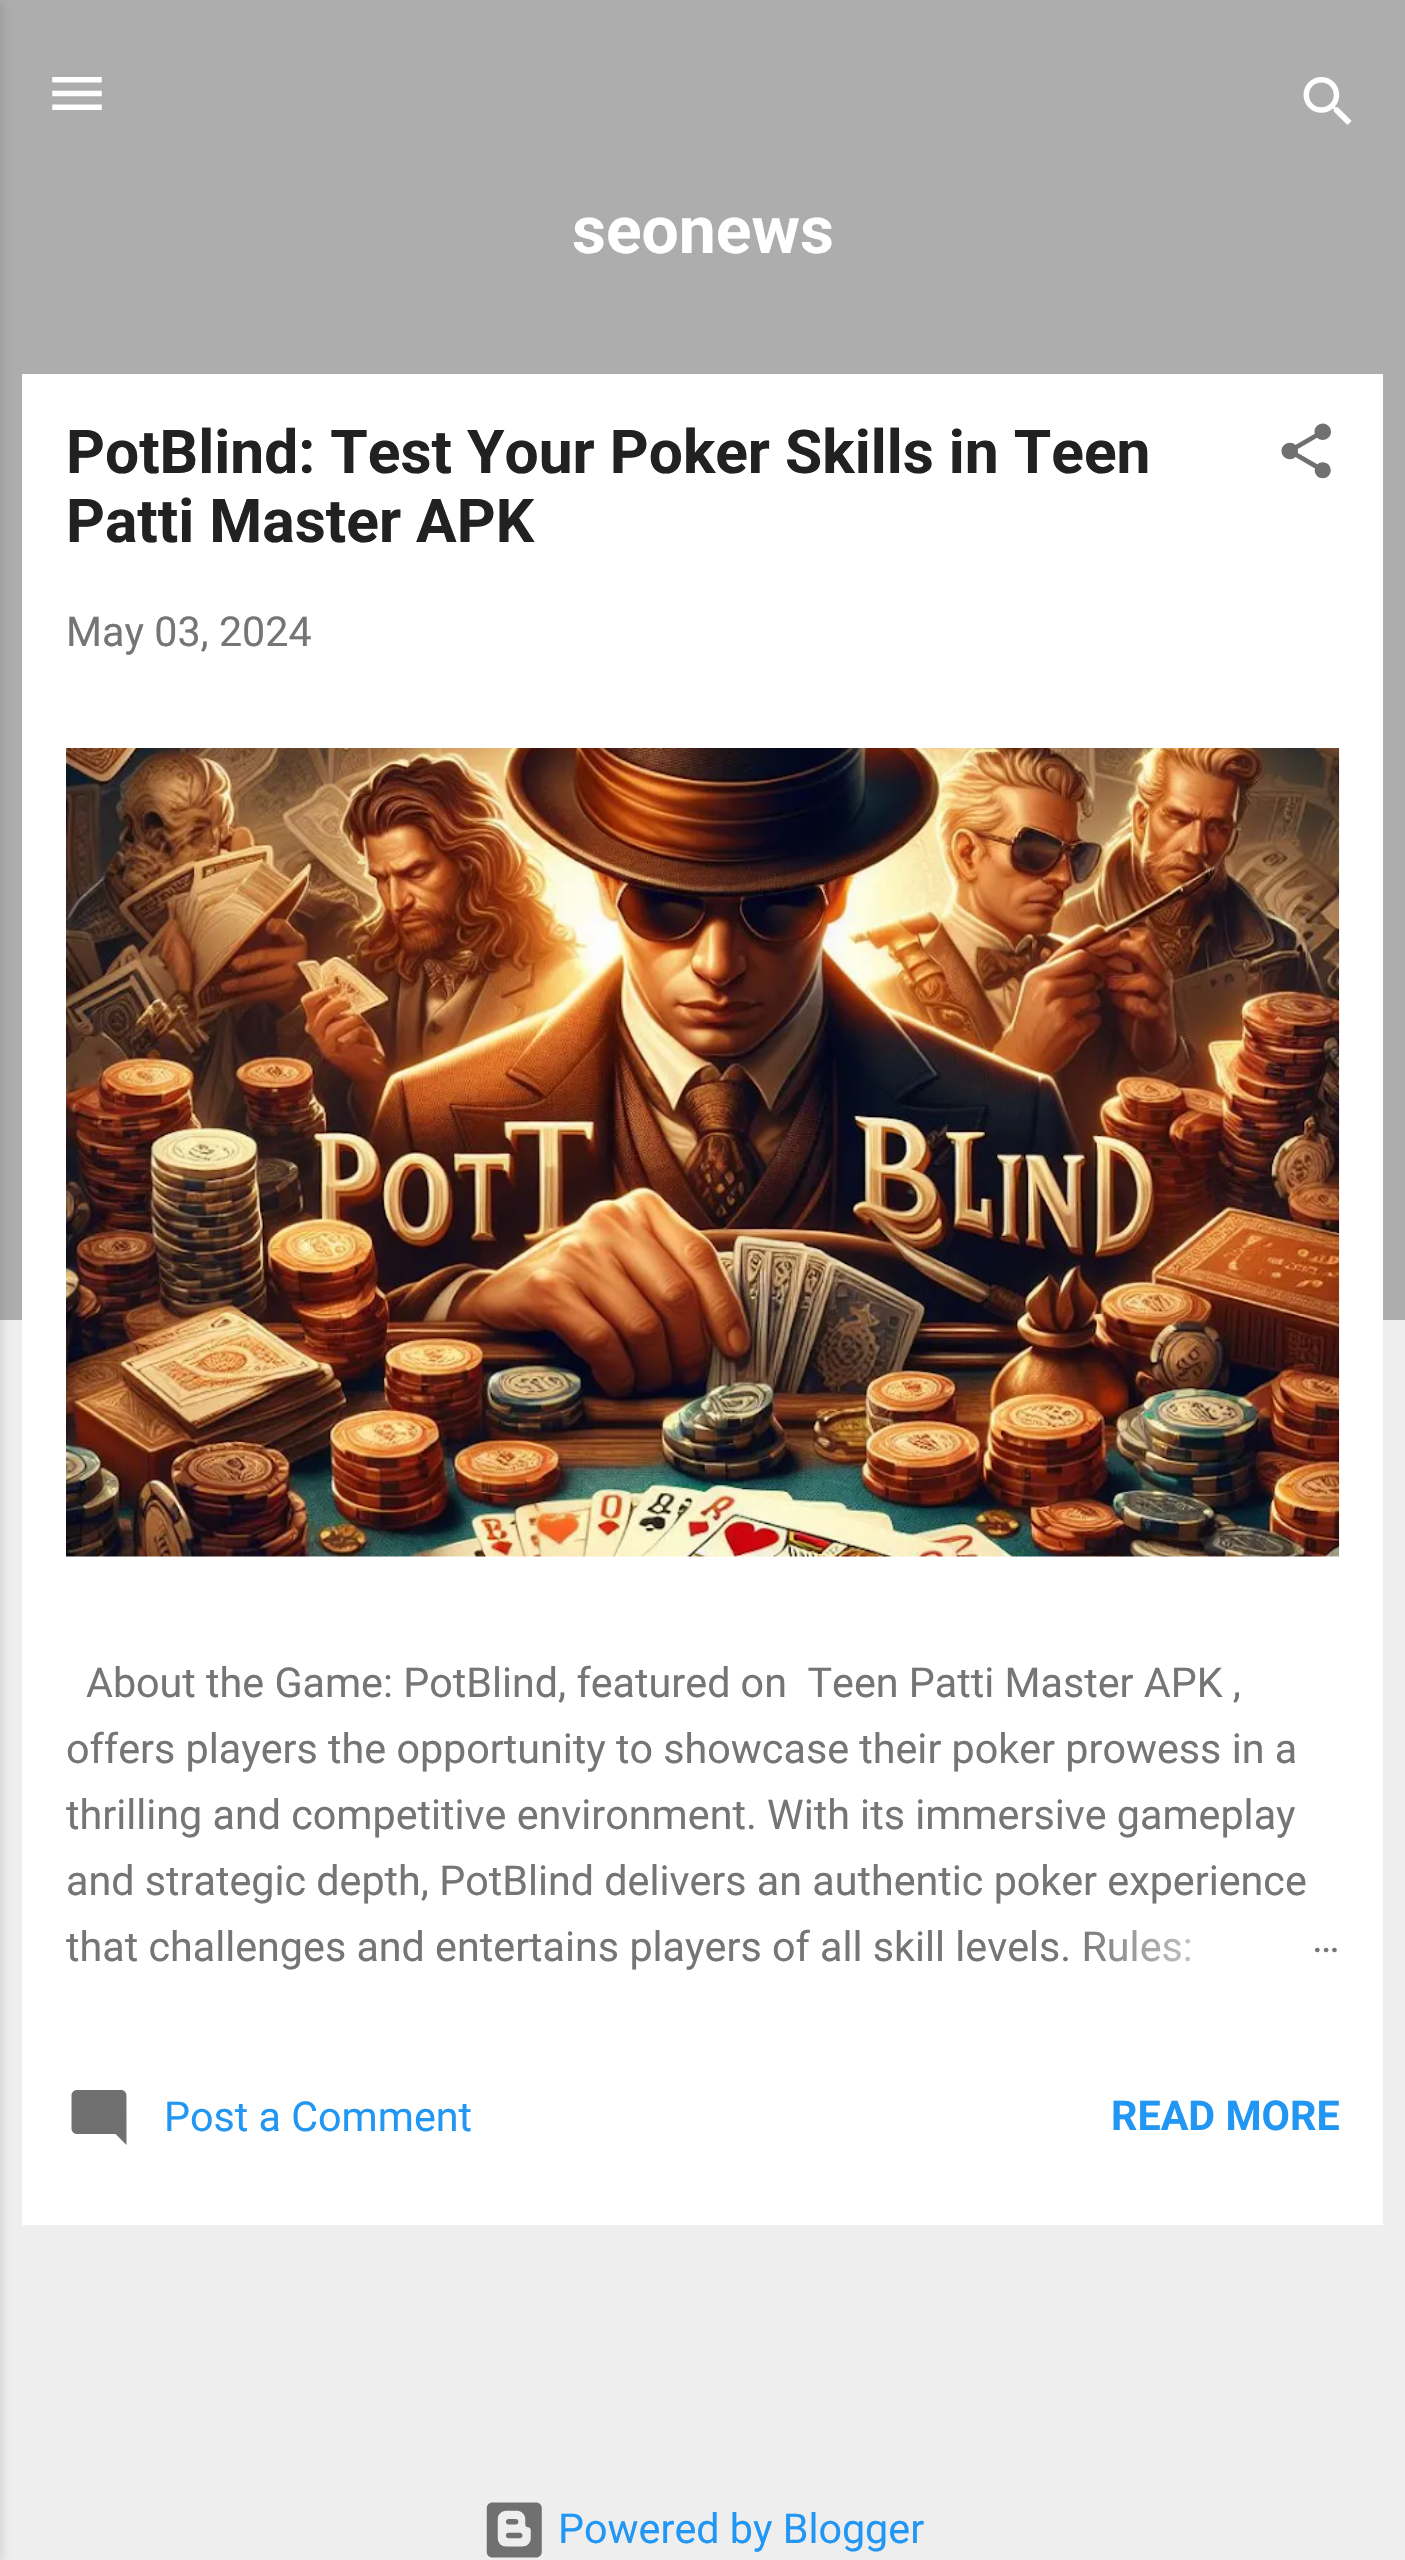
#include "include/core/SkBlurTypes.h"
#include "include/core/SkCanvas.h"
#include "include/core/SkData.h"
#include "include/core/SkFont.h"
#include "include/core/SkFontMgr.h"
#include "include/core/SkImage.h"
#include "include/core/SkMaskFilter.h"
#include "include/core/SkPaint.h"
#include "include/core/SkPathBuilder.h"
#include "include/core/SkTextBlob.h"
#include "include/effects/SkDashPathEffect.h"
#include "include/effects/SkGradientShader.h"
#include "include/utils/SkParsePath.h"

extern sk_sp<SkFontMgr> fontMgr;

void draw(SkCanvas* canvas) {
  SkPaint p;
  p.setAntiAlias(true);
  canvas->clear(SkColorSetRGB(238, 238, 238));
  p.setColor(SkColorSetRGB(173, 173, 173));
  canvas->drawRect(SkRect::MakeLTRB(0, 0, 1405, 1320), p);
  p.setColor(SkColorSetARGB(26, 0, 0, 0));
  p.setMaskFilter(SkMaskFilter::MakeBlur(kNormal_SkBlurStyle, 4));
  canvas->drawRect(SkRect::MakeLTRB(-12, 3, 3, 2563), p);
  p.setMaskFilter(nullptr);
  canvas->drawImageRect(SkImages::DeferredFromEncodedData(SkData::MakeFromFileName("images/1.png")), SkRect::MakeLTRB(52, 77, 102, 110), SkSamplingOptions());
  canvas->drawImageRect(SkImages::DeferredFromEncodedData(SkData::MakeFromFileName("images/2.png")), SkRect::MakeLTRB(1303, 77, 1352, 125), SkSamplingOptions());
  p.setColor(SK_ColorWHITE);
  canvas->drawRect(SkRect::MakeLTRB(22, 374, 1383, 2225), p);
  canvas->drawImageRect(SkImages::DeferredFromEncodedData(SkData::MakeFromFileName("images/3.png")), SkRect::MakeLTRB(1281, 423, 1331, 479), SkSamplingOptions());
  canvas->drawImageRect(SkImages::DeferredFromEncodedData(SkData::MakeFromFileName("images/4.png")), SkRect::MakeLTRB(66, 748, 1340, 1557), SkSamplingOptions());
  canvas->drawImageRect(SkImages::DeferredFromEncodedData(SkData::MakeFromFileName("images/5.png")), SkRect::MakeLTRB(71, 2090, 127, 2145), SkSamplingOptions());
  canvas->drawImageRect(SkImages::DeferredFromEncodedData(SkData::MakeFromFileName("images/6.png")), SkRect::MakeLTRB(486, 2502, 542, 2558), SkSamplingOptions());
  SkFont font1(fontMgr->matchFamilyStyle("Roboto", SkFontStyle::Bold()), 66);
  font1.setSubpixel(true);
  canvas->drawString("seonews", 572, 253, font1, p);
  SkFont font2(fontMgr->matchFamilyStyle("Roboto", SkFontStyle::Bold()), 60.5f);
  font2.setSubpixel(true);
  p.setColor(SkColorSetRGB(33, 33, 33));
  canvas->drawString("PotBlind: Test Your Poker Skills in Teen", 66, 473, font2, p);
  canvas->drawString("Patti Master APK", 66, 542, font2, p);
  SkFont font3(fontMgr->matchFamilyStyle("Roboto", SkFontStyle::Normal()), 41.25f);
  font3.setSubpixel(true);
  p.setColor(SkColorSetRGB(117, 117, 117));
  canvas->drawString("May 03, 2024", 66, 646, font3, p);
  canvas->drawString("About the Game: PotBlind, featured on  Teen Patti Master APK ,", 86, 1697, font3, p);
  canvas->drawString("offers players the opportunity to showcase their poker prowess in a", 66, 1763, font3, p);
  canvas->drawString("thrilling and competitive environment. With its immersive gameplay", 66, 1829, font3, p);
  canvas->drawString("and strategic depth, PotBlind delivers an authentic poker experience", 66, 1895, font3, p);
  canvas->drawString("that challenges and entertains players of all skill levels. Rules:", 66, 1961, font3, p);
  {
    const SkColor colors[] = {SK_ColorWHITE, SK_ColorWHITE, SkColorSetARGB(0, 255, 255, 255)};
    const float stops[] = {0, 0.2f, 1};
    const SkPoint ends[] = {{1339, 1947}, {1075, 1947}};
    p.setShader(SkGradientShader::MakeLinear(ends, colors, stops, 3, SkTileMode::kClamp));
    p.setAlpha(255);
  }
  canvas->drawRect(SkRect::MakeLTRB(1085, 1930, 1191, 1962), p);
  p.setShader(nullptr);
  p.setColor(SkColorSetRGB(117, 117, 117));
  canvas->drawString("…", 1312, 1952, font3, p);
  p.setColor(SkColorSetRGB(33, 150, 243));
  canvas->drawString("Post a Comment", 164, 2131, font3, p);
  SkFont font4(fontMgr->matchFamilyStyle("Roboto", SkFontStyle::Bold()), 41.25f);
  font4.setSubpixel(true);
  canvas->drawString("READ MORE", 1111, 2130, font4, p);
  canvas->drawString("Powered by Blogger", 558, 2543, font3, p);
}
